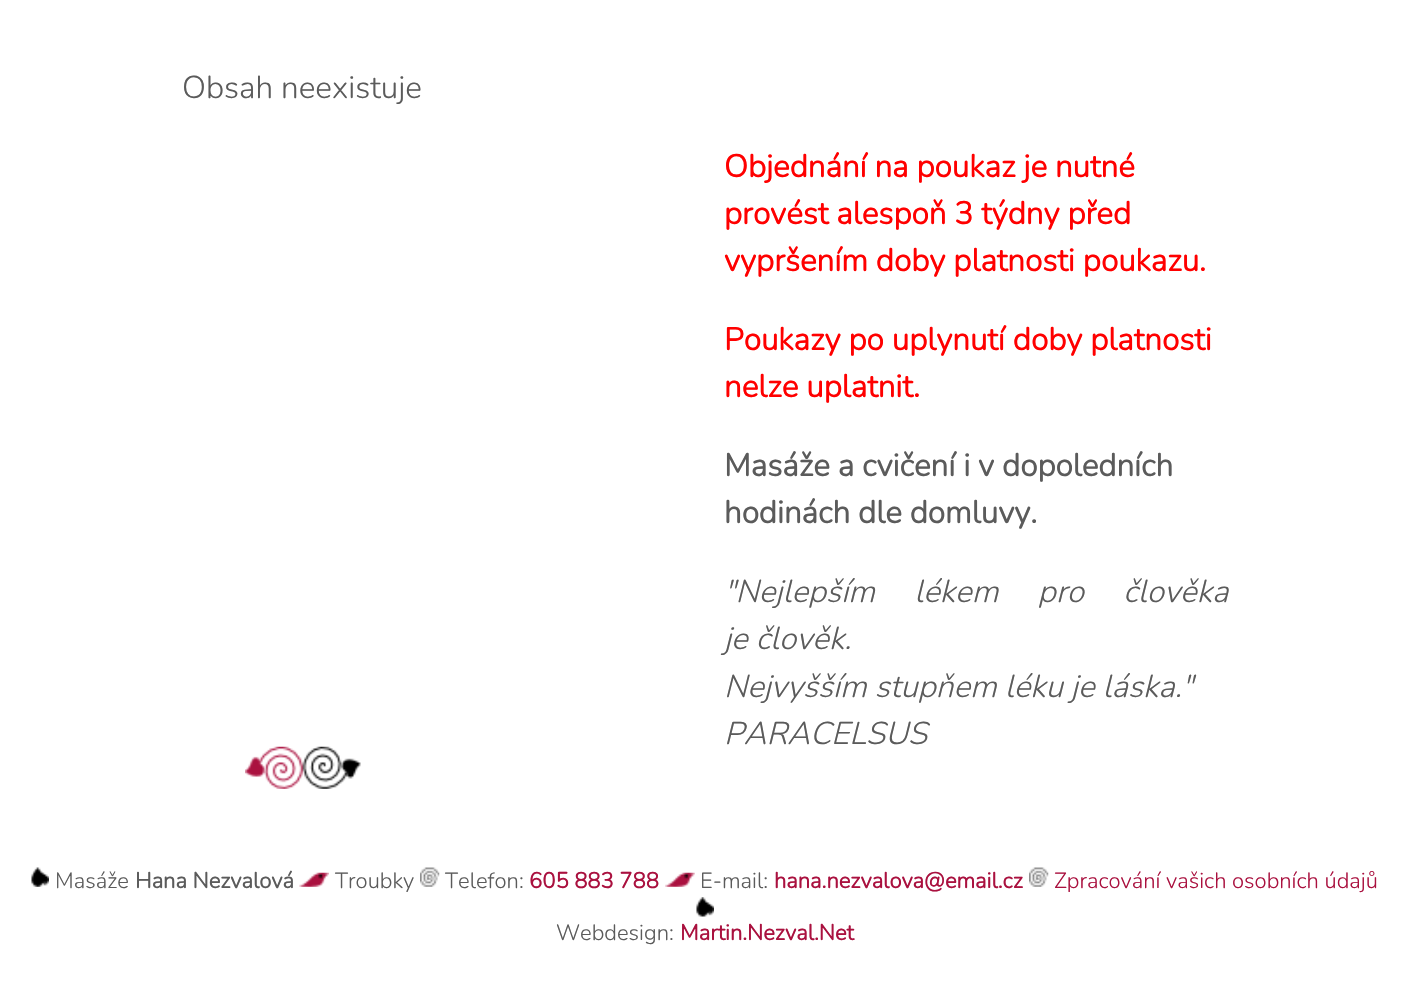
#include "include/core/SkBlurTypes.h"
#include "include/core/SkCanvas.h"
#include "include/core/SkData.h"
#include "include/core/SkFont.h"
#include "include/core/SkFontMgr.h"
#include "include/core/SkImage.h"
#include "include/core/SkMaskFilter.h"
#include "include/core/SkPaint.h"
#include "include/core/SkPathBuilder.h"
#include "include/core/SkTextBlob.h"
#include "include/effects/SkDashPathEffect.h"
#include "include/effects/SkGradientShader.h"
#include "include/utils/SkParsePath.h"

extern sk_sp<SkFontMgr> fontMgr;

void draw(SkCanvas* canvas) {
  SkPaint p;
  p.setAntiAlias(true);
  auto spacedText = [&](const char* s, float x, float y, const SkFont& font, const SkPaint& ink, float letter, float word) {
    std::vector<SkGlyphID> glyphs(font.countText(s, strlen(s), SkTextEncoding::kUTF8));
    std::vector<float> xs(glyphs.size());
    font.textToGlyphs(s, strlen(s), SkTextEncoding::kUTF8, glyphs);
    font.getXPos(glyphs, xs, x);
    float extra = 0;
    for (size_t i = 0; i < glyphs.size(); i++) {
      xs[i] += extra;
      extra += letter + word * (glyphs[i] == font.unicharToGlyph(' '));
    }
    canvas->drawTextBlob(SkTextBlob::MakeFromPosHGlyphs(glyphs, xs, y, font), 0, 0, ink);
  };
  canvas->clear(SK_ColorWHITE);
  canvas->drawImageRect(SkImages::DeferredFromEncodedData(SkData::MakeFromFileName("images/1.png")), SkRect::MakeLTRB(245, 746, 361, 789), SkSamplingOptions());
  canvas->drawImageRect(SkImages::DeferredFromEncodedData(SkData::MakeFromFileName("images/2.png")), SkRect::MakeLTRB(31, 867, 49, 887), SkSamplingOptions());
  canvas->drawImageRect(SkImages::DeferredFromEncodedData(SkData::MakeFromFileName("images/3.png")), SkRect::MakeLTRB(299, 872, 329, 887), SkSamplingOptions());
  canvas->drawImageRect(SkImages::DeferredFromEncodedData(SkData::MakeFromFileName("images/4.png")), SkRect::MakeLTRB(420, 867, 440, 887), SkSamplingOptions());
  canvas->drawImageRect(SkImages::DeferredFromEncodedData(SkData::MakeFromFileName("images/5.png")), SkRect::MakeLTRB(665, 872, 695, 887), SkSamplingOptions());
  canvas->drawImageRect(SkImages::DeferredFromEncodedData(SkData::MakeFromFileName("images/6.png")), SkRect::MakeLTRB(1029, 867, 1049, 887), SkSamplingOptions());
  canvas->drawImageRect(SkImages::DeferredFromEncodedData(SkData::MakeFromFileName("images/7.png")), SkRect::MakeLTRB(696, 897, 714, 917), SkSamplingOptions());
  SkFont font1(fontMgr->matchFamilyStyle("Nunito", SkFontStyle(300, SkFontStyle::kNormal_Width, SkFontStyle::kUpright_Slant)), 31.5f);
  font1.setSubpixel(true);
  p.setColor(SkColorSetRGB(91, 91, 91));
  canvas->drawString("Obsah neexistuje", 182, 98, font1, p);
  SkFont font2(fontMgr->matchFamilyStyle("Nunito", SkFontStyle::Bold()), 31.5f);
  font2.setSubpixel(true);
  p.setColor(SkColorSetRGB(255, 0, 0));
  canvas->drawString("Objednání na poukaz je nutné", 724, 177, font2, p);
  canvas->drawString("provést alespoň 3 týdny před", 724, 224, font2, p);
  canvas->drawString("vypršením doby platnosti poukazu.", 724, 271, font2, p);
  canvas->drawString("Poukazy po uplynutí doby platnosti", 724, 350, font2, p);
  canvas->drawString("nelze uplatnit.", 724, 397, font2, p);
  p.setColor(SkColorSetRGB(91, 91, 91));
  canvas->drawString("Masáže a cvičení i v dopoledních", 724, 476, font2, p);
  canvas->drawString("hodinách dle domluvy.", 724, 523, font2, p);
  SkFont font3(fontMgr->matchFamilyStyle("Nunito", SkFontStyle(300, SkFontStyle::kNormal_Width, SkFontStyle::kItalic_Slant)), 31.5f);
  font3.setSubpixel(true);
  spacedText("\"Nejlepším lékem pro člověka", 724, 602, font3, p, 0, 31.5f);
  canvas->drawString("je člověk.", 724, 649, font3, p);
  canvas->drawString("Nejvyšším stupňem léku je láska.\"", 724, 697, font3, p);
  canvas->drawString("PARACELSUS", 724, 744, font3, p);
  SkFont font4(fontMgr->matchFamilyStyle("Nunito", SkFontStyle(300, SkFontStyle::kNormal_Width, SkFontStyle::kUpright_Slant)), 22);
  font4.setSubpixel(true);
  canvas->drawString("Masáže", 55, 888, font4, p);
  SkFont font5(fontMgr->matchFamilyStyle("Nunito", SkFontStyle::Bold()), 22);
  font5.setSubpixel(true);
  canvas->drawString("Hana Nezvalová", 135, 888, font5, p);
  canvas->drawString("Troubky", 335, 888, font4, p);
  canvas->drawString("Telefon:", 445, 888, font4, p);
  p.setColor(SkColorSetRGB(170, 17, 63));
  canvas->drawString("605 883 788", 529, 888, font5, p);
  p.setColor(SkColorSetRGB(91, 91, 91));
  canvas->drawString("E-mail:", 700, 888, font4, p);
  p.setColor(SkColorSetRGB(170, 17, 63));
  canvas->drawString("hana.nezvalova@email.cz", 774, 888, font5, p);
  canvas->drawString("Zpracování vašich osobních údajů", 1054, 888, font4, p);
  p.setColor(SkColorSetRGB(91, 91, 91));
  canvas->drawString("Webdesign:", 556, 940, font4, p);
  p.setColor(SkColorSetRGB(170, 17, 63));
  canvas->drawString("Martin.Nezval.Net", 680, 940, font5, p);
}
